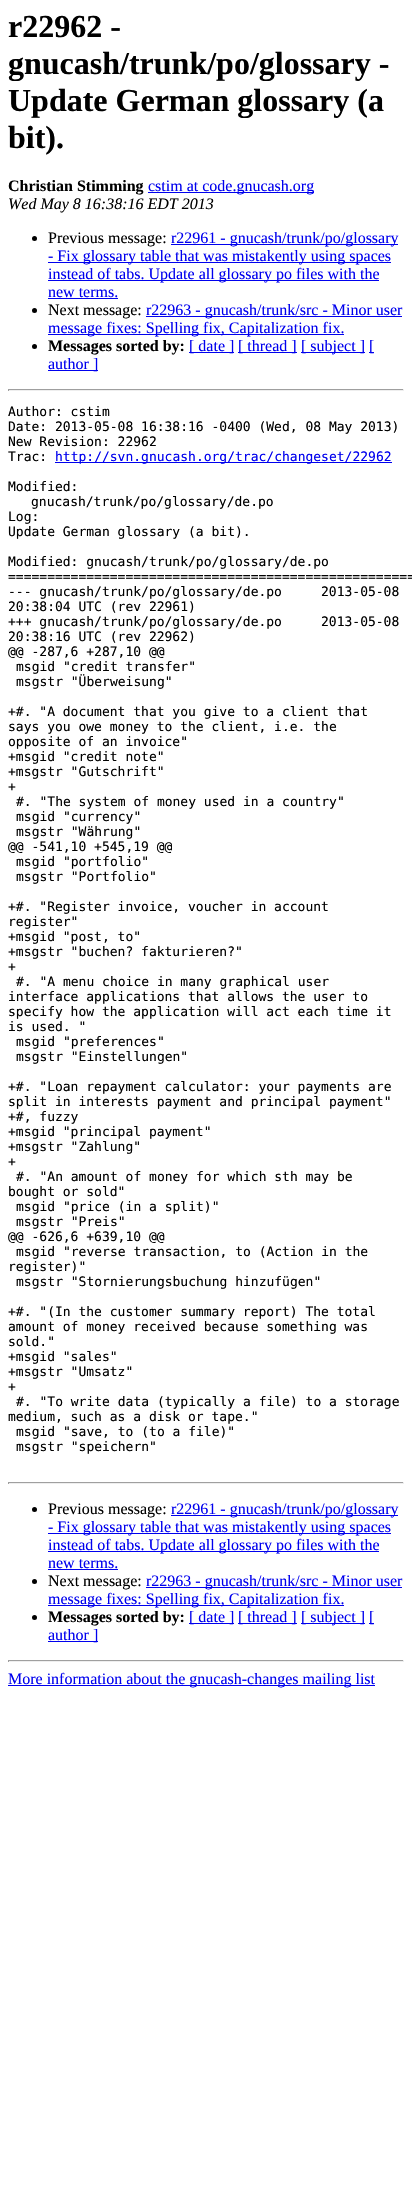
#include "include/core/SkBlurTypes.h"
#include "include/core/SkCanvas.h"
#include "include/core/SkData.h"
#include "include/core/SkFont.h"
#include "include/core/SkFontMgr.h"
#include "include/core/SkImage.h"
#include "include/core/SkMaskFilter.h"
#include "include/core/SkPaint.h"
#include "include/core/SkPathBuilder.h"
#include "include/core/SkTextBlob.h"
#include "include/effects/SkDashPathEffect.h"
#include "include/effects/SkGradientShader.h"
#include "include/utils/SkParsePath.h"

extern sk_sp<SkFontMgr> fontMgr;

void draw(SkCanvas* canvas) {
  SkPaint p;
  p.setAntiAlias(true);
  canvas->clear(SK_ColorWHITE);
  p.setColor(SkColorSetRGB(0, 0, 238));
  canvas->drawRect(SkRect::MakeLTRB(148, 192, 314, 193), p);
  p.setColor(SK_ColorBLACK);
  canvas->drawCircle(34.5f, 238.5f, 2.5f, p);
  p.setColor(SkColorSetRGB(0, 0, 238));
  canvas->drawRect(SkRect::MakeLTRB(171, 244, 398, 245), p);
  canvas->drawRect(SkRect::MakeLTRB(48, 262, 391, 263), p);
  canvas->drawRect(SkRect::MakeLTRB(48, 280, 379, 281), p);
  canvas->drawRect(SkRect::MakeLTRB(48, 298, 118, 299), p);
  p.setColor(SK_ColorBLACK);
  canvas->drawCircle(34.5f, 310.5f, 2.5f, p);
  p.setColor(SkColorSetRGB(0, 0, 238));
  canvas->drawRect(SkRect::MakeLTRB(146, 316, 402, 317), p);
  canvas->drawRect(SkRect::MakeLTRB(48, 334, 344, 335), p);
  p.setColor(SK_ColorBLACK);
  canvas->drawCircle(34.5f, 346.5f, 2.5f, p);
  p.setColor(SkColorSetRGB(0, 0, 238));
  canvas->drawRect(SkRect::MakeLTRB(189, 352, 234, 353), p);
  canvas->drawRect(SkRect::MakeLTRB(238, 352, 297, 353), p);
  canvas->drawRect(SkRect::MakeLTRB(301, 352, 365, 353), p);
  canvas->drawRect(SkRect::MakeLTRB(369, 352, 374, 353), p);
  canvas->drawRect(SkRect::MakeLTRB(48, 370, 98, 371), p);
  p.setColor(SkColorSetRGB(159, 159, 159));
  canvas->drawRect(SkRect::MakeLTRB(8, 389, 404, 390), p);
  p.setColor(SkColorSetRGB(238, 238, 238));
  canvas->drawRect(SkRect::MakeLTRB(403, 389, 404, 391), p);
  canvas->drawRect(SkRect::MakeLTRB(8, 390, 404, 391), p);
  p.setColor(SkColorSetRGB(159, 159, 159));
  canvas->drawRect(SkRect::MakeLTRB(8, 389, 9, 391), p);
  p.setColor(SkColorSetRGB(0, 0, 238));
  canvas->drawRect(SkRect::MakeLTRB(55, 462, 392, 463), p);
  p.setColor(SkColorSetRGB(159, 159, 159));
  canvas->drawRect(SkRect::MakeLTRB(8, 1482, 404, 1483), p);
  p.setColor(SkColorSetRGB(238, 238, 238));
  canvas->drawRect(SkRect::MakeLTRB(403, 1482, 404, 1484), p);
  canvas->drawRect(SkRect::MakeLTRB(8, 1483, 404, 1484), p);
  p.setColor(SkColorSetRGB(159, 159, 159));
  canvas->drawRect(SkRect::MakeLTRB(8, 1482, 9, 1484), p);
  p.setColor(SK_ColorBLACK);
  canvas->drawCircle(34.5f, 1509.5f, 2.5f, p);
  p.setColor(SkColorSetRGB(0, 0, 238));
  canvas->drawRect(SkRect::MakeLTRB(171, 1515, 398, 1516), p);
  canvas->drawRect(SkRect::MakeLTRB(48, 1533, 391, 1534), p);
  canvas->drawRect(SkRect::MakeLTRB(48, 1551, 379, 1552), p);
  canvas->drawRect(SkRect::MakeLTRB(48, 1569, 118, 1570), p);
  p.setColor(SK_ColorBLACK);
  canvas->drawCircle(34.5f, 1581.5f, 2.5f, p);
  p.setColor(SkColorSetRGB(0, 0, 238));
  canvas->drawRect(SkRect::MakeLTRB(146, 1587, 402, 1588), p);
  canvas->drawRect(SkRect::MakeLTRB(48, 1605, 344, 1606), p);
  p.setColor(SK_ColorBLACK);
  canvas->drawCircle(34.5f, 1617.5f, 2.5f, p);
  p.setColor(SkColorSetRGB(0, 0, 238));
  canvas->drawRect(SkRect::MakeLTRB(189, 1623, 234, 1624), p);
  canvas->drawRect(SkRect::MakeLTRB(238, 1623, 297, 1624), p);
  canvas->drawRect(SkRect::MakeLTRB(301, 1623, 365, 1624), p);
  canvas->drawRect(SkRect::MakeLTRB(369, 1623, 374, 1624), p);
  canvas->drawRect(SkRect::MakeLTRB(48, 1641, 98, 1642), p);
  p.setColor(SkColorSetRGB(159, 159, 159));
  canvas->drawRect(SkRect::MakeLTRB(8, 1660, 404, 1661), p);
  p.setColor(SkColorSetRGB(238, 238, 238));
  canvas->drawRect(SkRect::MakeLTRB(403, 1660, 404, 1662), p);
  canvas->drawRect(SkRect::MakeLTRB(8, 1661, 404, 1662), p);
  p.setColor(SkColorSetRGB(159, 159, 159));
  canvas->drawRect(SkRect::MakeLTRB(8, 1660, 9, 1662), p);
  p.setColor(SkColorSetRGB(0, 0, 238));
  canvas->drawRect(SkRect::MakeLTRB(8, 1685, 375, 1686), p);
  SkFont font1(fontMgr->matchFamilyStyle("Liberation Serif", SkFontStyle::Bold()), 32);
  font1.setSubpixel(true);
  p.setColor(SK_ColorBLACK);
  canvas->drawString("r22962 -", 8, 37, font1, p);
  canvas->drawString("gnucash/trunk/po/glossary -", 8, 74, font1, p);
  canvas->drawString("Update German glossary (a", 8, 111, font1, p);
  canvas->drawString("bit).", 8, 148, font1, p);
  SkFont font2(fontMgr->matchFamilyStyle("Liberation Serif", SkFontStyle::Bold()), 16);
  font2.setSubpixel(true);
  canvas->drawString("Christian Stimming", 8, 191, font2, p);
  SkFont font3(fontMgr->matchFamilyStyle("Liberation Serif", SkFontStyle::Normal()), 16);
  font3.setSubpixel(true);
  p.setColor(SkColorSetRGB(0, 0, 238));
  canvas->drawString("cstim at code.gnucash.org", 148, 191, font3, p);
  SkFont font4(fontMgr->matchFamilyStyle("Liberation Serif", SkFontStyle::Italic()), 16);
  font4.setSubpixel(true);
  p.setColor(SK_ColorBLACK);
  canvas->drawString("Wed May 8 16:38:16 EDT 2013", 8, 209, font4, p);
  canvas->drawString("Previous message:", 48, 243, font3, p);
  p.setColor(SkColorSetRGB(0, 0, 238));
  canvas->drawString("r22961 - gnucash/trunk/po/glossary", 171, 243, font3, p);
  canvas->drawString("- Fix glossary table that was mistakently using spaces", 48, 261, font3, p);
  canvas->drawString("instead of tabs. Update all glossary po files with the", 48, 279, font3, p);
  canvas->drawString("new terms.", 48, 297, font3, p);
  p.setColor(SK_ColorBLACK);
  canvas->drawString("Next message:", 48, 315, font3, p);
  p.setColor(SkColorSetRGB(0, 0, 238));
  canvas->drawString("r22963 - gnucash/trunk/src - Minor user", 146, 315, font3, p);
  canvas->drawString("message fixes: Spelling fix, Capitalization fix.", 48, 333, font3, p);
  p.setColor(SK_ColorBLACK);
  canvas->drawString("Messages sorted by:", 48, 351, font2, p);
  p.setColor(SkColorSetRGB(0, 0, 238));
  canvas->drawString("[ date ]", 189, 351, font3, p);
  canvas->drawString("[ thread ]", 238, 351, font3, p);
  canvas->drawString("[ subject ]", 301, 351, font3, p);
  canvas->drawString("[", 369, 351, font3, p);
  canvas->drawString("author ]", 48, 369, font3, p);
  SkFont font5(fontMgr->matchFamilyStyle("DejaVu Sans Mono", SkFontStyle::Normal()), 13);
  font5.setSubpixel(true);
  p.setColor(SK_ColorBLACK);
  canvas->drawString("Author: cstim", 8, 416, font5, p);
  canvas->drawString("Date: 2013-05-08 16:38:16 -0400 (Wed, 08 May 2013)", 8, 431, font5, p);
  canvas->drawString("New Revision: 22962", 8, 446, font5, p);
  canvas->drawString("Trac:", 8, 461, font5, p);
  p.setColor(SkColorSetRGB(0, 0, 238));
  canvas->drawString("http://svn.gnucash.org/trac/changeset/22962", 55, 461, font5, p);
  p.setColor(SK_ColorBLACK);
  canvas->drawString("Modified:", 8, 491, font5, p);
  canvas->drawString("gnucash/trunk/po/glossary/de.po", 31, 506, font5, p);
  canvas->drawString("Log:", 8, 521, font5, p);
  canvas->drawString("Update German glossary (a bit).", 8, 536, font5, p);
  canvas->drawString("Modified: gnucash/trunk/po/glossary/de.po", 8, 566, font5, p);
  canvas->drawString("====================================================", 8, 581, font5, p);
  canvas->drawString("--- gnucash/trunk/po/glossary/de.po", 8, 596, font5, p);
  canvas->drawString("2013-05-08", 321, 596, font5, p);
  canvas->drawString("20:38:04 UTC (rev 22961)", 8, 611, font5, p);
  canvas->drawString("+++ gnucash/trunk/po/glossary/de.po", 8, 626, font5, p);
  canvas->drawString("2013-05-08", 321, 626, font5, p);
  canvas->drawString("20:38:16 UTC (rev 22962)", 8, 641, font5, p);
  canvas->drawString("@@ -287,6 +287,10 @@", 8, 656, font5, p);
  canvas->drawString("msgid \"credit transfer\"", 16, 671, font5, p);
  canvas->drawString("msgstr \"Überweisung\"", 16, 686, font5, p);
  canvas->drawString("+#. \"A document that you give to a client that", 8, 716, font5, p);
  canvas->drawString("says you owe money to the client, i.e. the", 8, 731, font5, p);
  canvas->drawString("opposite of an invoice\"", 8, 746, font5, p);
  canvas->drawString("+msgid \"credit note\"", 8, 761, font5, p);
  canvas->drawString("+msgstr \"Gutschrift\"", 8, 776, font5, p);
  canvas->drawString("+", 8, 791, font5, p);
  canvas->drawString("#. \"The system of money used in a country\"", 16, 806, font5, p);
  canvas->drawString("msgid \"currency\"", 16, 821, font5, p);
  canvas->drawString("msgstr \"Währung\"", 16, 836, font5, p);
  canvas->drawString("@@ -541,10 +545,19 @@", 8, 851, font5, p);
  canvas->drawString("msgid \"portfolio\"", 16, 866, font5, p);
  canvas->drawString("msgstr \"Portfolio\"", 16, 881, font5, p);
  canvas->drawString("+#. \"Register invoice, voucher in account", 8, 911, font5, p);
  canvas->drawString("register\"", 8, 926, font5, p);
  canvas->drawString("+msgid \"post, to\"", 8, 941, font5, p);
  canvas->drawString("+msgstr \"buchen? fakturieren?\"", 8, 956, font5, p);
  canvas->drawString("+", 8, 971, font5, p);
  canvas->drawString("#. \"A menu choice in many graphical user", 16, 986, font5, p);
  canvas->drawString("interface applications that allows the user to", 8, 1001, font5, p);
  canvas->drawString("specify how the application will act each time it", 8, 1016, font5, p);
  canvas->drawString("is used. \"", 8, 1031, font5, p);
  canvas->drawString("msgid \"preferences\"", 16, 1046, font5, p);
  canvas->drawString("msgstr \"Einstellungen\"", 16, 1061, font5, p);
  canvas->drawString("+#. \"Loan repayment calculator: your payments are", 8, 1091, font5, p);
  canvas->drawString("split in interests payment and principal payment\"", 8, 1106, font5, p);
  canvas->drawString("+#, fuzzy", 8, 1121, font5, p);
  canvas->drawString("+msgid \"principal payment\"", 8, 1136, font5, p);
  canvas->drawString("+msgstr \"Zahlung\"", 8, 1151, font5, p);
  canvas->drawString("+", 8, 1166, font5, p);
  canvas->drawString("#. \"An amount of money for which sth may be", 16, 1181, font5, p);
  canvas->drawString("bought or sold\"", 8, 1196, font5, p);
  canvas->drawString("msgid \"price (in a split)\"", 16, 1211, font5, p);
  canvas->drawString("msgstr \"Preis\"", 16, 1226, font5, p);
  canvas->drawString("@@ -626,6 +639,10 @@", 8, 1241, font5, p);
  canvas->drawString("msgid \"reverse transaction, to (Action in the", 16, 1256, font5, p);
  canvas->drawString("register)\"", 8, 1271, font5, p);
  canvas->drawString("msgstr \"Stornierungsbuchung hinzufügen\"", 16, 1286, font5, p);
  canvas->drawString("+#. \"(In the customer summary report) The total", 8, 1316, font5, p);
  canvas->drawString("amount of money received because something was", 8, 1331, font5, p);
  canvas->drawString("sold.\"", 8, 1346, font5, p);
  canvas->drawString("+msgid \"sales\"", 8, 1361, font5, p);
  canvas->drawString("+msgstr \"Umsatz\"", 8, 1376, font5, p);
  canvas->drawString("+", 8, 1391, font5, p);
  canvas->drawString("#. \"To write data (typically a file) to a storage", 16, 1406, font5, p);
  canvas->drawString("medium, such as a disk or tape.\"", 8, 1421, font5, p);
  canvas->drawString("msgid \"save, to (to a file)\"", 16, 1436, font5, p);
  canvas->drawString("msgstr \"speichern\"", 16, 1451, font5, p);
  canvas->drawString("Previous message:", 48, 1514, font3, p);
  p.setColor(SkColorSetRGB(0, 0, 238));
  canvas->drawString("r22961 - gnucash/trunk/po/glossary", 171, 1514, font3, p);
  canvas->drawString("- Fix glossary table that was mistakently using spaces", 48, 1532, font3, p);
  canvas->drawString("instead of tabs. Update all glossary po files with the", 48, 1550, font3, p);
  canvas->drawString("new terms.", 48, 1568, font3, p);
  p.setColor(SK_ColorBLACK);
  canvas->drawString("Next message:", 48, 1586, font3, p);
  p.setColor(SkColorSetRGB(0, 0, 238));
  canvas->drawString("r22963 - gnucash/trunk/src - Minor user", 146, 1586, font3, p);
  canvas->drawString("message fixes: Spelling fix, Capitalization fix.", 48, 1604, font3, p);
  p.setColor(SK_ColorBLACK);
  canvas->drawString("Messages sorted by:", 48, 1622, font2, p);
  p.setColor(SkColorSetRGB(0, 0, 238));
  canvas->drawString("[ date ]", 189, 1622, font3, p);
  canvas->drawString("[ thread ]", 238, 1622, font3, p);
  canvas->drawString("[ subject ]", 301, 1622, font3, p);
  canvas->drawString("[", 369, 1622, font3, p);
  canvas->drawString("author ]", 48, 1640, font3, p);
  canvas->drawString("More information about the gnucash-changes mailing list", 8, 1684, font3, p);
}
